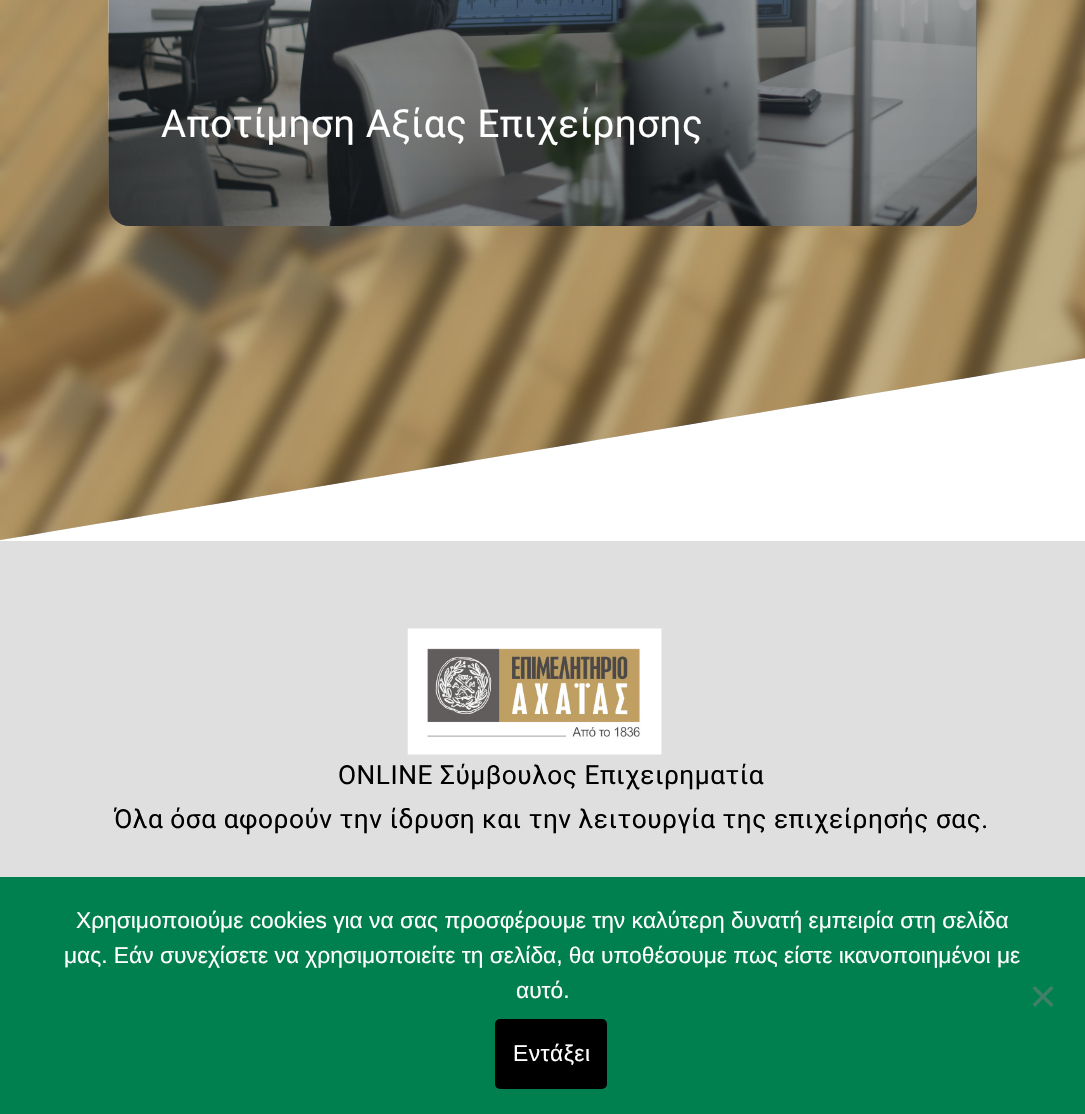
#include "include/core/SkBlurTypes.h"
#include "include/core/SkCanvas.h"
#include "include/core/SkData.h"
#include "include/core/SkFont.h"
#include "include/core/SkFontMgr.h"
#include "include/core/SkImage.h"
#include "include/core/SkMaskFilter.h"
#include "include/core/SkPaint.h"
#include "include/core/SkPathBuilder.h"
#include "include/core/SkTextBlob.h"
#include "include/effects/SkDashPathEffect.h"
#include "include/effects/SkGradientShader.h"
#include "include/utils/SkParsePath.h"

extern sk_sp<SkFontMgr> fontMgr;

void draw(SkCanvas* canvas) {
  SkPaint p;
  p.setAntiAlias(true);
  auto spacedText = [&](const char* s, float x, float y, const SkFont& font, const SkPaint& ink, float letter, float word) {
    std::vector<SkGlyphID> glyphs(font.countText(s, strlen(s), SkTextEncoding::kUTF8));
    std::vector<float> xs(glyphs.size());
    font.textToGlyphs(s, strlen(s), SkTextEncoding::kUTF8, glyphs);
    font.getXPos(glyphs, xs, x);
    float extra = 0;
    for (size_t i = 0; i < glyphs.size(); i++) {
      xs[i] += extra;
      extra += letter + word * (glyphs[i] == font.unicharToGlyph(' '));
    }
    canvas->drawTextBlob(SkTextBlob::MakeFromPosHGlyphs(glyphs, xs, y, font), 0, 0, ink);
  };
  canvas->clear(SK_ColorWHITE);
  canvas->drawImageRect(SkImages::DeferredFromEncodedData(SkData::MakeFromFileName("images/1.png")), SkRect::MakeLTRB(0, 0, 1085, 541), SkSamplingOptions());
  p.setColor(SkColorSetARGB(128, 137, 95, 8));
  canvas->drawPath(SkPathBuilder().moveTo(0, -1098).lineTo(0, 540).lineTo(1085, 358).lineTo(1085, -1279).lineTo(1078, -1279).close().detach(), p);
  canvas->drawImageRect(SkImages::DeferredFromEncodedData(SkData::MakeFromFileName("images/2.png")), SkRect::MakeLTRB(108, 0, 977, 226), SkSamplingOptions());
  {
    const SkColor colors[] = {SkColorSetARGB(102, 68, 68, 68), SkColorSetARGB(102, 0, 0, 0)};
    const float stops[] = {0, 1};
    const SkPoint ends[] = {{543, -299}, {543, 226}};
    p.setShader(SkGradientShader::MakeLinear(ends, colors, stops, 2, SkTileMode::kClamp));
    p.setAlpha(255);
  }
  canvas->drawRoundRect(SkRect::MakeLTRB(109, -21, 977, 226), 21, 21, p);
  p.setShader(nullptr);
  p.setColor(SkColorSetRGB(223, 223, 223));
  canvas->drawRect(SkRect::MakeLTRB(0, 541, 1085, 877), p);
  canvas->drawImageRect(SkImages::DeferredFromEncodedData(SkData::MakeFromFileName("images/3.png")), SkRect::MakeLTRB(407, 628, 662, 755), SkSamplingOptions());
  p.setColor(SkColorSetRGB(0, 128, 79));
  canvas->drawRect(SkRect::MakeLTRB(0, 877, 1085, 1114), p);
  p.setColor(SkColorSetRGB(64, 128, 104));
  canvas->drawPath(SkPathBuilder().moveTo(1051, 986).lineTo(1053.5f, 988.5f).lineTo(1035, 1007).lineTo(1032.5f, 1004.5f).close().detach(), p);
  canvas->drawPath(SkPathBuilder().moveTo(1032.5f, 988.5f).lineTo(1035, 986).lineTo(1053.5f, 1004.5f).lineTo(1051, 1007).close().detach(), p);
  p.setColor(SK_ColorBLACK);
  canvas->drawRoundRect(SkRect::MakeLTRB(495, 1019, 607, 1089), 5, 5, p);
  SkFont font1(fontMgr->matchFamilyStyle("Roboto", SkFontStyle::Normal()), 38.5f);
  font1.setSubpixel(true);
  p.setColor(SK_ColorWHITE);
  spacedText("Αποτίμηση Αξίας Επιχείρησης", 161, 137, font1, p, 0.53f, 0);
  SkFont font2(fontMgr->matchFamilyStyle("Roboto", SkFontStyle::Normal()), 26.25f);
  font2.setSubpixel(true);
  p.setColor(SK_ColorBLACK);
  spacedText("ONLINE Σύμβουλος Επιχειρηματία", 338, 784, font2, p, 0.53f, 0);
  spacedText("Όλα όσα αφορούν την ίδρυση και την λειτουργία της επιχείρησής σας.", 114, 828, font2, p, 0.53f, 0);
  SkFont font3(fontMgr->matchFamilyStyle("Liberation Sans", SkFontStyle::Normal()), 22.75f);
  font3.setSubpixel(true);
  p.setColor(SK_ColorWHITE);
  canvas->drawString("Χρησιμοποιούμε cookies για να σας προσφέρουμε την καλύτερη δυνατή εμπειρία στη σελίδα", 76, 928, font3, p);
  canvas->drawString("μας. Εάν συνεχίσετε να χρησιμοποιείτε τη σελίδα, θα υποθέσουμε πως είστε ικανοποιημένοι με", 64, 963, font3, p);
  canvas->drawString("αυτό.", 516, 998, font3, p);
  spacedText("Εντάξει", 513, 1061, font3, p, 0.5f, 0);
}
